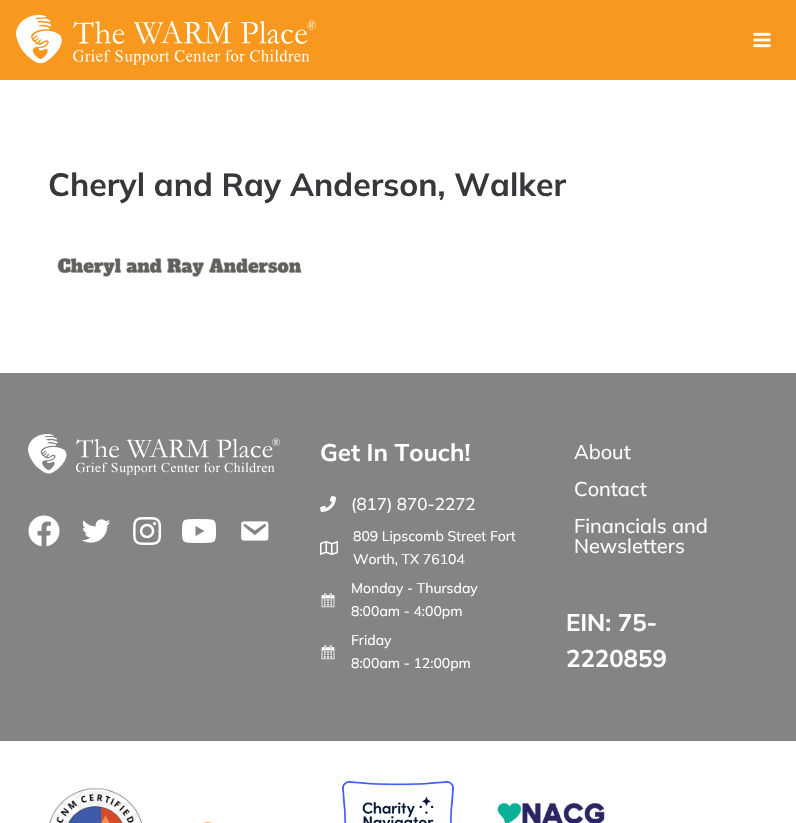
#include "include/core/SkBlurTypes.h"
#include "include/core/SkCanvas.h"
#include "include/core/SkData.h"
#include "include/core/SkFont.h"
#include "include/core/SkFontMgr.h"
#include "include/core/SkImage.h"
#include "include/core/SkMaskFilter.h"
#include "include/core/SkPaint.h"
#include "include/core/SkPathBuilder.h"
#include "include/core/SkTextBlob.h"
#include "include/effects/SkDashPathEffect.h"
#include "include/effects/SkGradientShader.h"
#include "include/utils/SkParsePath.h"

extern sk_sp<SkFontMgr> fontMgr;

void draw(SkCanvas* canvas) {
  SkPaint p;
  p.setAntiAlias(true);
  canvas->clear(SK_ColorWHITE);
  p.setColor(SkColorSetRGB(248, 152, 30));
  canvas->drawRect(SkRect::MakeLTRB(0, 0, 796, 80), p);
  canvas->drawImageRect(SkImages::DeferredFromEncodedData(SkData::MakeFromFileName("images/1.png")), SkRect::MakeLTRB(16, 15, 316, 65), SkSamplingOptions());
  canvas->drawImageRect(SkImages::DeferredFromEncodedData(SkData::MakeFromFileName("images/2.png")), SkRect::MakeLTRB(753, 32, 771, 48), SkSamplingOptions());
  canvas->drawImageRect(SkImages::DeferredFromEncodedData(SkData::MakeFromFileName("images/3.png")), SkRect::MakeLTRB(57, 258, 302, 277), SkSamplingOptions());
  p.setColor(SkColorSetRGB(131, 133, 133));
  canvas->drawRect(SkRect::MakeLTRB(0, 373, 796, 741), p);
  canvas->drawImageRect(SkImages::DeferredFromEncodedData(SkData::MakeFromFileName("images/4.png")), SkRect::MakeLTRB(28, 434, 280, 475), SkSamplingOptions());
  canvas->drawImageRect(SkImages::DeferredFromEncodedData(SkData::MakeFromFileName("images/5.png")), SkRect::MakeLTRB(28, 515, 60, 547), SkSamplingOptions());
  canvas->drawImageRect(SkImages::DeferredFromEncodedData(SkData::MakeFromFileName("images/6.png")), SkRect::MakeLTRB(82, 519, 111, 543), SkSamplingOptions());
  canvas->drawImageRect(SkImages::DeferredFromEncodedData(SkData::MakeFromFileName("images/7.png")), SkRect::MakeLTRB(133, 517, 162, 545), SkSamplingOptions());
  canvas->drawImageRect(SkImages::DeferredFromEncodedData(SkData::MakeFromFileName("images/8.png")), SkRect::MakeLTRB(181, 519, 217, 543), SkSamplingOptions());
  canvas->drawImageRect(SkImages::DeferredFromEncodedData(SkData::MakeFromFileName("images/9.png")), SkRect::MakeLTRB(241, 521, 269, 541), SkSamplingOptions());
  canvas->drawImageRect(SkImages::DeferredFromEncodedData(SkData::MakeFromFileName("images/10.png")), SkRect::MakeLTRB(320, 496, 336, 512), SkSamplingOptions());
  canvas->drawImageRect(SkImages::DeferredFromEncodedData(SkData::MakeFromFileName("images/11.png")), SkRect::MakeLTRB(320, 541, 338, 555), SkSamplingOptions());
  canvas->drawImageRect(SkImages::DeferredFromEncodedData(SkData::MakeFromFileName("images/12.png")), SkRect::MakeLTRB(321, 593, 335, 608), SkSamplingOptions());
  canvas->drawImageRect(SkImages::DeferredFromEncodedData(SkData::MakeFromFileName("images/12.png")), SkRect::MakeLTRB(321, 645, 335, 660), SkSamplingOptions());
  canvas->drawImageRect(SkImages::DeferredFromEncodedData(SkData::MakeFromFileName("images/13.png")), SkRect::MakeLTRB(49, 788, 142, 823), SkSamplingOptions());
  canvas->drawImageRect(SkImages::DeferredFromEncodedData(SkData::MakeFromFileName("images/14.png")), SkRect::MakeLTRB(202, 822, 214, 823), SkSamplingOptions());
  canvas->drawImageRect(SkImages::DeferredFromEncodedData(SkData::MakeFromFileName("images/15.png")), SkRect::MakeLTRB(342, 781, 454, 823), SkSamplingOptions());
  canvas->drawImageRect(SkImages::DeferredFromEncodedData(SkData::MakeFromFileName("images/16.png")), SkRect::MakeLTRB(497, 803, 605, 823), SkSamplingOptions());
  SkFont font1(fontMgr->matchFamilyStyle("Mulish", SkFontStyle::Bold()), 32);
  font1.setSubpixel(true);
  p.setColor(SkColorSetRGB(54, 56, 60));
  canvas->drawString("Cheryl and Ray Anderson, Walker", 48, 196, font1, p);
  SkFont font2(fontMgr->matchFamilyStyle("Mulish", SkFontStyle::Bold()), 24);
  font2.setSubpixel(true);
  p.setColor(SK_ColorWHITE);
  canvas->drawString("Get In Touch!", 320, 461, font2, p);
  SkFont font3(fontMgr->matchFamilyStyle("Mulish", SkFontStyle::Normal()), 17);
  font3.setSubpixel(true);
  canvas->drawString("(817) 870-2272", 351, 510, font3, p);
  SkFont font4(fontMgr->matchFamilyStyle("Mulish", SkFontStyle::Normal()), 14);
  font4.setSubpixel(true);
  canvas->drawString("809 Lipscomb Street Fort", 353, 541, font4, p);
  canvas->drawString("Worth, TX 76104", 353, 564, font4, p);
  canvas->drawString("Monday - Thursday", 351, 593, font4, p);
  canvas->drawString("8:00am - 4:00pm", 351, 616, font4, p);
  canvas->drawString("Friday", 351, 645, font4, p);
  canvas->drawString("8:00am - 12:00pm", 351, 668, font4, p);
  SkFont font5(fontMgr->matchFamilyStyle("Mulish", SkFontStyle::Normal()), 20);
  font5.setSubpixel(true);
  canvas->drawString("About", 574, 459, font5, p);
  canvas->drawString("Contact", 574, 496, font5, p);
  canvas->drawString("Financials and", 574, 533, font5, p);
  canvas->drawString("Newsletters", 574, 553, font5, p);
  canvas->drawString("EIN: 75-", 566, 631, font2, p);
  canvas->drawString("2220859", 566, 667, font2, p);
}
